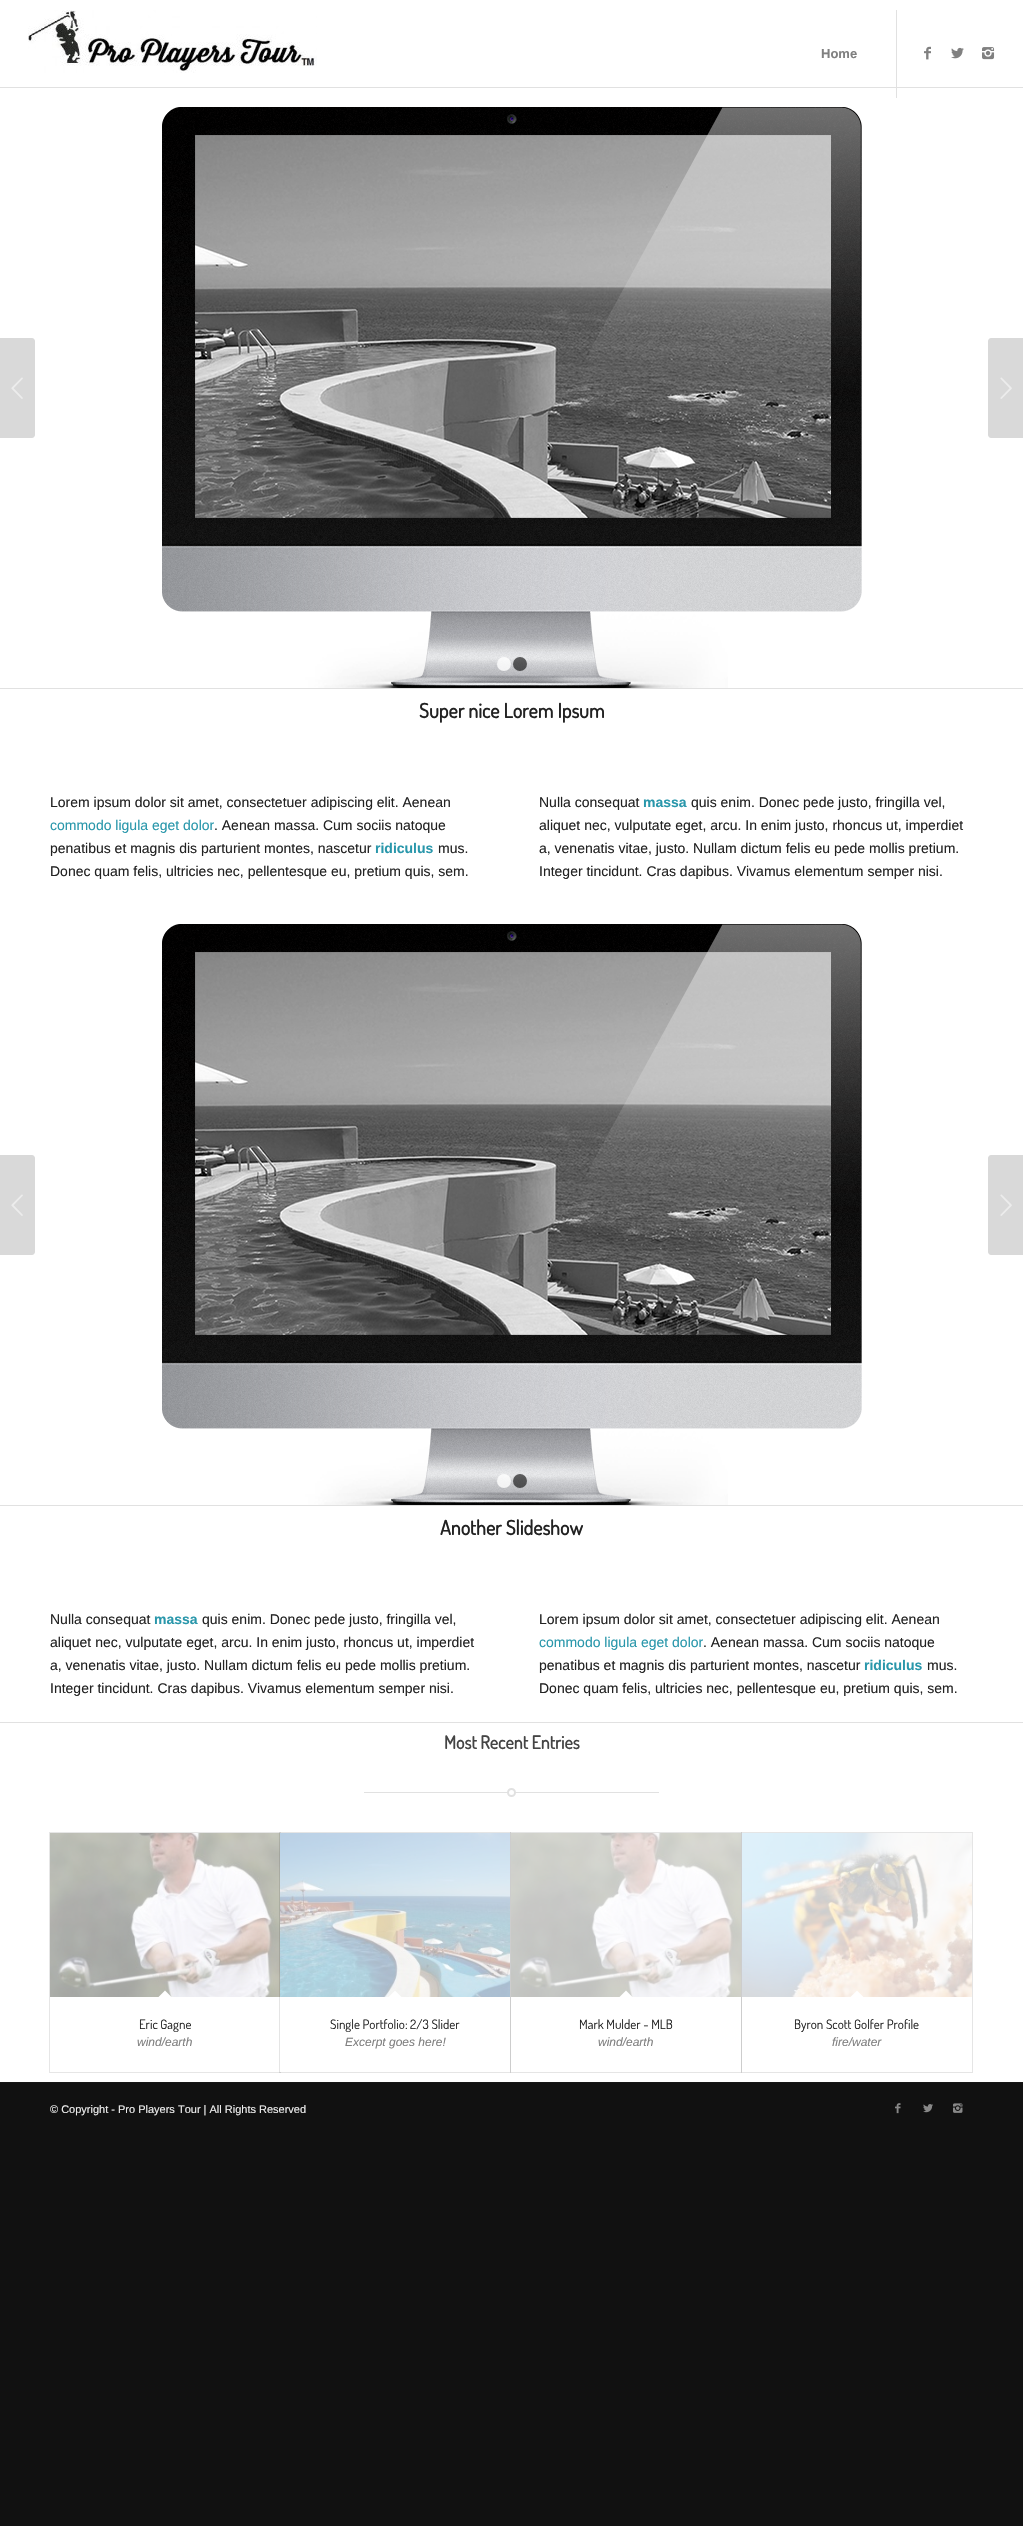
#include "include/core/SkBlurTypes.h"
#include "include/core/SkCanvas.h"
#include "include/core/SkData.h"
#include "include/core/SkFont.h"
#include "include/core/SkFontMgr.h"
#include "include/core/SkImage.h"
#include "include/core/SkMaskFilter.h"
#include "include/core/SkPaint.h"
#include "include/core/SkPathBuilder.h"
#include "include/core/SkTextBlob.h"
#include "include/effects/SkDashPathEffect.h"
#include "include/effects/SkGradientShader.h"
#include "include/utils/SkParsePath.h"

extern sk_sp<SkFontMgr> fontMgr;

void draw(SkCanvas* canvas) {
  SkPaint p;
  p.setAntiAlias(true);
  canvas->clear(SkColorSetRGB(17, 17, 17));
  p.setColor(SK_ColorWHITE);
  canvas->drawRect(SkRect::MakeLTRB(0, 0, 1023, 87), p);
  p.setColor(SkColorSetRGB(225, 225, 225));
  canvas->drawRect(SkRect::MakeLTRB(0, 87, 1023, 88), p);
  canvas->drawImageRect(SkImages::DeferredFromEncodedData(SkData::MakeFromFileName("images/1.png")), SkRect::MakeLTRB(28, 10, 317, 73), SkSamplingOptions());
  p.setColor(SK_ColorWHITE);
  canvas->drawRect(SkRect::MakeLTRB(0, 88, 1023, 2082), p);
  p.setColor(SkColorSetRGB(225, 225, 225));
  canvas->drawRect(SkRect::MakeLTRB(896, 10, 897, 98), p);
  canvas->drawImageRect(SkImages::DeferredFromEncodedData(SkData::MakeFromFileName("images/2.png")), SkRect::MakeLTRB(924, 46, 931, 60), SkSamplingOptions());
  canvas->drawImageRect(SkImages::DeferredFromEncodedData(SkData::MakeFromFileName("images/3.png")), SkRect::MakeLTRB(951, 47, 964, 59), SkSamplingOptions());
  canvas->drawImageRect(SkImages::DeferredFromEncodedData(SkData::MakeFromFileName("images/4.png")), SkRect::MakeLTRB(982, 47, 995, 60), SkSamplingOptions());
  canvas->drawImageRect(SkImages::DeferredFromEncodedData(SkData::MakeFromFileName("images/5.png")), SkRect::MakeLTRB(162, 107, 862, 688), SkSamplingOptions());
  p.setColor(SkColorSetRGB(217, 217, 217));
  canvas->drawPath(SkPathBuilder().moveTo(0, 338).lineTo(32, 338).cubicTo(33.5f, 338, 35, 339.5f, 35, 341).lineTo(35, 435).cubicTo(35, 436.5f, 33.5f, 438, 32, 438).lineTo(0, 438).close().detach(), p);
  canvas->drawImageRect(SkImages::DeferredFromEncodedData(SkData::MakeFromFileName("images/6.png")), SkRect::MakeLTRB(11, 377, 23, 399), SkSamplingOptions());
  canvas->drawPath(SkPathBuilder().moveTo(991, 338).lineTo(1023, 338).lineTo(1023, 438).lineTo(991, 438).cubicTo(989.5f, 438, 988, 436.5f, 988, 435).lineTo(988, 341).cubicTo(988, 339.5f, 989.5f, 338, 991, 338).close().detach(), p);
  canvas->drawImageRect(SkImages::DeferredFromEncodedData(SkData::MakeFromFileName("images/7.png")), SkRect::MakeLTRB(1000, 377, 1012, 399), SkSamplingOptions());
  p.setColor(SkColorSetARGB(204, 255, 255, 255));
  canvas->drawCircle(504, 664, 7, p);
  p.setColor(SkColorSetARGB(153, 0, 0, 0));
  canvas->drawCircle(520, 664, 7, p);
  p.setColor(SkColorSetRGB(225, 225, 225));
  canvas->drawRect(SkRect::MakeLTRB(0, 688, 1023, 689), p);
  canvas->drawImageRect(SkImages::DeferredFromEncodedData(SkData::MakeFromFileName("images/5.png")), SkRect::MakeLTRB(162, 924, 862, 1505), SkSamplingOptions());
  p.setColor(SkColorSetRGB(217, 217, 217));
  canvas->drawPath(SkPathBuilder().moveTo(0, 1155).lineTo(32, 1155).cubicTo(33.5f, 1155, 35, 1156.5f, 35, 1158).lineTo(35, 1252).cubicTo(35, 1253.5f, 33.5f, 1255, 32, 1255).lineTo(0, 1255).close().detach(), p);
  canvas->drawImageRect(SkImages::DeferredFromEncodedData(SkData::MakeFromFileName("images/6.png")), SkRect::MakeLTRB(11, 1194, 23, 1216), SkSamplingOptions());
  canvas->drawPath(SkPathBuilder().moveTo(991, 1155).lineTo(1023, 1155).lineTo(1023, 1255).lineTo(991, 1255).cubicTo(989.5f, 1255, 988, 1253.5f, 988, 1252).lineTo(988, 1158).cubicTo(988, 1156.5f, 989.5f, 1155, 991, 1155).close().detach(), p);
  canvas->drawImageRect(SkImages::DeferredFromEncodedData(SkData::MakeFromFileName("images/7.png")), SkRect::MakeLTRB(1000, 1194, 1012, 1216), SkSamplingOptions());
  p.setColor(SkColorSetARGB(204, 255, 255, 255));
  canvas->drawCircle(504, 1481, 7, p);
  p.setColor(SkColorSetARGB(153, 0, 0, 0));
  canvas->drawCircle(520, 1481, 7, p);
  p.setColor(SkColorSetRGB(225, 225, 225));
  canvas->drawRect(SkRect::MakeLTRB(0, 1505, 1023, 1506), p);
  canvas->drawRect(SkRect::MakeLTRB(0, 1722, 1023, 1723), p);
  canvas->drawRect(SkRect::MakeLTRB(364, 1792, 659, 1793), p);
  p.setColor(SK_ColorWHITE);
  canvas->drawCircle(511.5f, 1792.5f, 3.5f, p);
  p.setStyle(SkPaint::kStroke_Style);
  p.setStrokeWidth(2);
  p.setColor(SkColorSetRGB(225, 225, 225));
  canvas->drawCircle(511.5f, 1792.5f, 3.5f, p);
  p.setStrokeWidth(1);
  p.setColor(SkColorSetRGB(230, 230, 230));
  canvas->drawRect(SkRect::MakeLTRB(49.5f, 1832.5f, 280.5f, 2072.5f), p);
  canvas->drawImageRect(SkImages::DeferredFromEncodedData(SkData::MakeFromFileName("images/8.png")), SkRect::MakeLTRB(50, 1833, 280, 1997), SkSamplingOptions());
  p.setStyle(SkPaint::kFill_Style);
  p.setColor(SK_ColorWHITE);
  canvas->drawPath(SkPathBuilder().moveTo(165, 1990.5f).lineTo(172, 1997.5f).lineTo(165, 2004.5f).lineTo(158, 1997.5f).close().detach(), p);
  p.setStyle(SkPaint::kStroke_Style);
  p.setColor(SkColorSetARGB(26, 0, 0, 0));
  canvas->drawRect(SkRect::MakeLTRB(279.5f, 1832.5f, 510.5f, 2072.5f), p);
  p.setStyle(SkPaint::kFill_Style);
  p.setColor(SK_ColorWHITE);
  canvas->drawRect(SkRect::MakeLTRB(280, 1833, 281, 2072), p);
  canvas->drawImageRect(SkImages::DeferredFromEncodedData(SkData::MakeFromFileName("images/9.png")), SkRect::MakeLTRB(280, 1833, 510, 1997), SkSamplingOptions());
  canvas->drawPath(SkPathBuilder().moveTo(395, 1990.5f).lineTo(402, 1997.5f).lineTo(395, 2004.5f).lineTo(388, 1997.5f).close().detach(), p);
  p.setStyle(SkPaint::kStroke_Style);
  p.setColor(SkColorSetARGB(26, 0, 0, 0));
  canvas->drawRect(SkRect::MakeLTRB(510.5f, 1832.5f, 741.5f, 2072.5f), p);
  canvas->drawImageRect(SkImages::DeferredFromEncodedData(SkData::MakeFromFileName("images/10.png")), SkRect::MakeLTRB(511, 1833, 741, 1997), SkSamplingOptions());
  p.setStyle(SkPaint::kFill_Style);
  p.setColor(SK_ColorWHITE);
  canvas->drawPath(SkPathBuilder().moveTo(626, 1990.5f).lineTo(633, 1997.5f).lineTo(626, 2004.5f).lineTo(619, 1997.5f).close().detach(), p);
  p.setStyle(SkPaint::kStroke_Style);
  p.setColor(SkColorSetARGB(26, 0, 0, 0));
  canvas->drawRect(SkRect::MakeLTRB(741.5f, 1832.5f, 972.5f, 2072.5f), p);
  canvas->drawImageRect(SkImages::DeferredFromEncodedData(SkData::MakeFromFileName("images/11.png")), SkRect::MakeLTRB(742, 1833, 972, 1997), SkSamplingOptions());
  p.setStyle(SkPaint::kFill_Style);
  p.setColor(SK_ColorWHITE);
  canvas->drawPath(SkPathBuilder().moveTo(857, 1990.5f).lineTo(864, 1997.5f).lineTo(857, 2004.5f).lineTo(850, 1997.5f).close().detach(), p);
  p.setColor(SkColorSetRGB(22, 22, 22));
  canvas->drawRect(SkRect::MakeLTRB(0, 2082, 1023, 2083), p);
  canvas->drawImageRect(SkImages::DeferredFromEncodedData(SkData::MakeFromFileName("images/12.png")), SkRect::MakeLTRB(895, 2103, 901, 2114), SkSamplingOptions());
  canvas->drawImageRect(SkImages::DeferredFromEncodedData(SkData::MakeFromFileName("images/13.png")), SkRect::MakeLTRB(923, 2104, 933, 2113), SkSamplingOptions());
  canvas->drawImageRect(SkImages::DeferredFromEncodedData(SkData::MakeFromFileName("images/14.png")), SkRect::MakeLTRB(953, 2103, 963, 2113), SkSamplingOptions());
  SkFont font1(fontMgr->matchFamilyStyle("Liberation Sans", SkFontStyle::Bold()), 13);
  font1.setSubpixel(true);
  p.setColor(SkColorSetRGB(128, 128, 128));
  canvas->drawString("Home", 821, 58, font1, p);
  SkFont font2(fontMgr->matchFamilyStyle("Dosis", SkFontStyle::Bold()), 20);
  font2.setSubpixel(true);
  p.setColor(SkColorSetRGB(34, 34, 34));
  canvas->drawString("Super nice Lorem Ipsum", 419, 718, font2, p);
  SkFont font3(fontMgr->matchFamilyStyle("Liberation Sans", SkFontStyle::Normal()), 14);
  font3.setSubpixel(true);
  canvas->drawString("Lorem ipsum dolor sit amet, consectetuer adipiscing elit. Aenean", 50, 807, font3, p);
  p.setColor(SkColorSetRGB(41, 151, 171));
  canvas->drawString("commodo ligula eget dolor", 50, 830, font3, p);
  p.setColor(SkColorSetRGB(34, 34, 34));
  canvas->drawString(". Aenean massa. Cum sociis natoque", 214, 830, font3, p);
  canvas->drawString("penatibus et magnis dis parturient montes, nascetur", 50, 853, font3, p);
  SkFont font4(fontMgr->matchFamilyStyle("Liberation Sans", SkFontStyle::Bold()), 14);
  font4.setSubpixel(true);
  p.setColor(SkColorSetRGB(41, 151, 171));
  canvas->drawString("ridiculus", 375, 853, font4, p);
  p.setColor(SkColorSetRGB(34, 34, 34));
  canvas->drawString("mus.", 438, 853, font3, p);
  canvas->drawString("Donec quam felis, ultricies nec, pellentesque eu, pretium quis, sem.", 50, 876, font3, p);
  canvas->drawString("Nulla consequat", 539, 807, font3, p);
  p.setColor(SkColorSetRGB(41, 151, 171));
  canvas->drawString("massa", 643, 807, font4, p);
  p.setColor(SkColorSetRGB(34, 34, 34));
  canvas->drawString("quis enim. Donec pede justo, fringilla vel,", 691, 807, font3, p);
  canvas->drawString("aliquet nec, vulputate eget, arcu. In enim justo, rhoncus ut, imperdiet", 539, 830, font3, p);
  canvas->drawString("a, venenatis vitae, justo. Nullam dictum felis eu pede mollis pretium.", 539, 853, font3, p);
  canvas->drawString("Integer tincidunt. Cras dapibus. Vivamus elementum semper nisi.", 539, 876, font3, p);
  canvas->drawString("Another Slideshow", 440, 1535, font2, p);
  canvas->drawString("Nulla consequat", 50, 1624, font3, p);
  p.setColor(SkColorSetRGB(41, 151, 171));
  canvas->drawString("massa", 154, 1624, font4, p);
  p.setColor(SkColorSetRGB(34, 34, 34));
  canvas->drawString("quis enim. Donec pede justo, fringilla vel,", 202, 1624, font3, p);
  canvas->drawString("aliquet nec, vulputate eget, arcu. In enim justo, rhoncus ut, imperdiet", 50, 1647, font3, p);
  canvas->drawString("a, venenatis vitae, justo. Nullam dictum felis eu pede mollis pretium.", 50, 1670, font3, p);
  canvas->drawString("Integer tincidunt. Cras dapibus. Vivamus elementum semper nisi.", 50, 1693, font3, p);
  canvas->drawString("Lorem ipsum dolor sit amet, consectetuer adipiscing elit. Aenean", 539, 1624, font3, p);
  p.setColor(SkColorSetRGB(41, 151, 171));
  canvas->drawString("commodo ligula eget dolor", 539, 1647, font3, p);
  p.setColor(SkColorSetRGB(34, 34, 34));
  canvas->drawString(". Aenean massa. Cum sociis natoque", 703, 1647, font3, p);
  canvas->drawString("penatibus et magnis dis parturient montes, nascetur", 539, 1670, font3, p);
  p.setColor(SkColorSetRGB(41, 151, 171));
  canvas->drawString("ridiculus", 864, 1670, font4, p);
  p.setColor(SkColorSetRGB(34, 34, 34));
  canvas->drawString("mus.", 927, 1670, font3, p);
  canvas->drawString("Donec quam felis, ultricies nec, pellentesque eu, pretium quis, sem.", 539, 1693, font3, p);
  SkFont font5(fontMgr->matchFamilyStyle("Dosis", SkFontStyle::Bold()), 18);
  font5.setSubpixel(true);
  p.setColor(SkColorSetRGB(68, 68, 68));
  canvas->drawString("Most Recent Entries", 444, 1749, font5, p);
  SkFont font6(fontMgr->matchFamilyStyle("Dosis", SkFontStyle::Normal()), 13);
  font6.setSubpixel(true);
  p.setColor(SkColorSetRGB(34, 34, 34));
  canvas->drawString("Eric Gagne", 139, 2029, font6, p);
  SkFont font7(fontMgr->matchFamilyStyle("Liberation Sans", SkFontStyle::Italic()), 12);
  font7.setSubpixel(true);
  p.setColor(SkColorSetRGB(128, 128, 128));
  canvas->drawString("wind/earth", 137, 2046, font7, p);
  p.setColor(SkColorSetRGB(34, 34, 34));
  canvas->drawString("Single Portfolio: 2/3 Slider", 330, 2029, font6, p);
  p.setColor(SkColorSetRGB(128, 128, 128));
  canvas->drawString("Excerpt goes here!", 345, 2046, font7, p);
  p.setColor(SkColorSetRGB(34, 34, 34));
  canvas->drawString("Mark Mulder - MLB", 579, 2029, font6, p);
  p.setColor(SkColorSetRGB(128, 128, 128));
  canvas->drawString("wind/earth", 598, 2046, font7, p);
  p.setColor(SkColorSetRGB(34, 34, 34));
  canvas->drawString("Byron Scott Golfer Profile", 794, 2029, font6, p);
  p.setColor(SkColorSetRGB(128, 128, 128));
  canvas->drawString("fire/water", 832, 2046, font7, p);
  SkFont font8(fontMgr->matchFamilyStyle("Liberation Sans", SkFontStyle::Normal()), 11);
  font8.setSubpixel(true);
  p.setColor(SkColorSetRGB(238, 238, 238));
  canvas->drawString("© Copyright - Pro Players Tour | All Rights Reserved", 50, 2113, font8, p);
}
